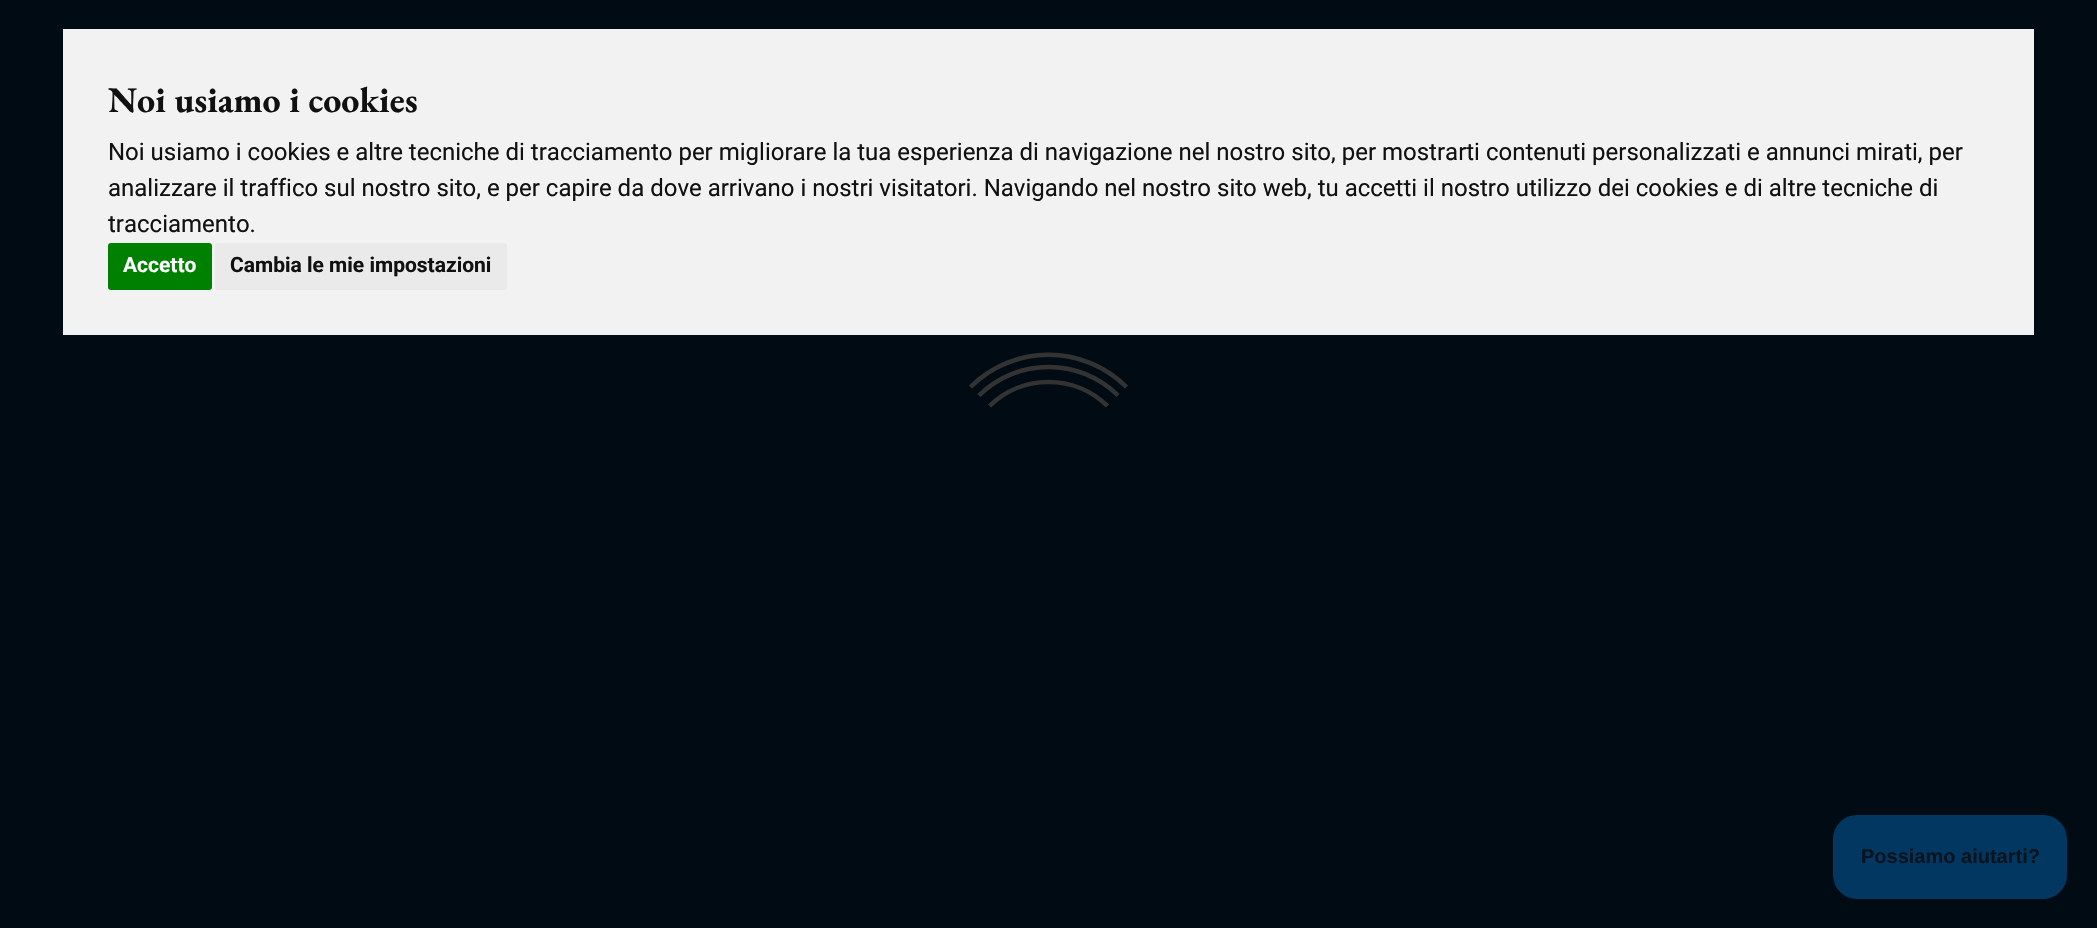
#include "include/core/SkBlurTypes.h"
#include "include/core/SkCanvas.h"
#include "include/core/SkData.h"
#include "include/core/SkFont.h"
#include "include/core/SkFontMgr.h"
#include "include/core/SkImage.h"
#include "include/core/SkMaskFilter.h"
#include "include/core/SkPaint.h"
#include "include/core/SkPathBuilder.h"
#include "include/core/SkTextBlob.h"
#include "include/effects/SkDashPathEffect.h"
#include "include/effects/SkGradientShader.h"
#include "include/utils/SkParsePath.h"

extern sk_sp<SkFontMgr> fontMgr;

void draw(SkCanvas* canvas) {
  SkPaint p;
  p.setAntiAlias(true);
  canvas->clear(SkColorSetRGB(0, 11, 19));
  p.setColor(SkColorSetRGB(242, 242, 242));
  canvas->drawRect(SkRect::MakeLTRB(63, 29, 2034, 335), p);
  p.setColor(SkColorSetRGB(0, 128, 0));
  canvas->drawRoundRect(SkRect::MakeLTRB(108, 243, 212, 290), 3, 3, p);
  p.setColor(SkColorSetRGB(234, 234, 234));
  canvas->drawRoundRect(SkRect::MakeLTRB(215, 243, 507, 290), 3, 3, p);
  p.setStyle(SkPaint::kStroke_Style);
  p.setStrokeWidth(4.5f);
  p.setColor(SkColorSetRGB(51, 51, 51));
  canvas->drawPath(SkPathBuilder().moveTo(970.5f, 387).cubicTo(1013.5f, 344, 1083.5f, 344, 1126.5f, 387).detach(), p);
  canvas->drawPath(SkPathBuilder().moveTo(979, 395.5f).cubicTo(1017, 357.5f, 1080, 357.5f, 1118, 395.5f).detach(), p);
  canvas->drawPath(SkPathBuilder().moveTo(989.5f, 406).cubicTo(1022, 374, 1075, 374, 1107.5f, 406).detach(), p);
  p.setStyle(SkPaint::kFill_Style);
  p.setColor(SkColorSetRGB(1, 55, 96));
  canvas->drawRoundRect(SkRect::MakeLTRB(1833, 815, 2067, 899), 24, 24, p);
  SkFont font1(fontMgr->matchFamilyStyle("EB Garamond", SkFontStyle::Bold()), 36);
  font1.setSubpixel(true);
  p.setColor(SkColorSetRGB(17, 17, 17));
  canvas->drawString("Noi usiamo i cookies", 108, 112, font1, p);
  SkFont font2(fontMgr->matchFamilyStyle("Roboto", SkFontStyle::Normal()), 24);
  font2.setSubpixel(true);
  canvas->drawString("Noi usiamo i cookies e altre tecniche di tracciamento per migliorare la tua esperienza di navigazione nel nostro sito, per mostrarti contenuti personalizzati e annunci mirati, per", 108, 160, font2, p);
  canvas->drawString("analizzare il traffico sul nostro sito, e per capire da dove arrivano i nostri visitatori. Navigando nel nostro sito web, tu accetti il nostro utilizzo dei cookies e di altre tecniche di", 108, 196, font2, p);
  canvas->drawString("tracciamento.", 108, 232, font2, p);
  SkFont font3(fontMgr->matchFamilyStyle("Roboto", SkFontStyle::Bold()), 21);
  font3.setSubpixel(true);
  p.setColor(SK_ColorWHITE);
  canvas->drawString("Accetto", 123, 272, font3, p);
  p.setColor(SkColorSetRGB(17, 17, 17));
  canvas->drawString("Cambia le mie impostazioni", 230, 272, font3, p);
  SkFont font4(fontMgr->matchFamilyStyle("Liberation Sans", SkFontStyle::Bold()), 20);
  font4.setSubpixel(true);
  p.setColor(SkColorSetRGB(7, 19, 29));
  canvas->drawString("Possiamo aiutarti?", 1861, 863, font4, p);
}
